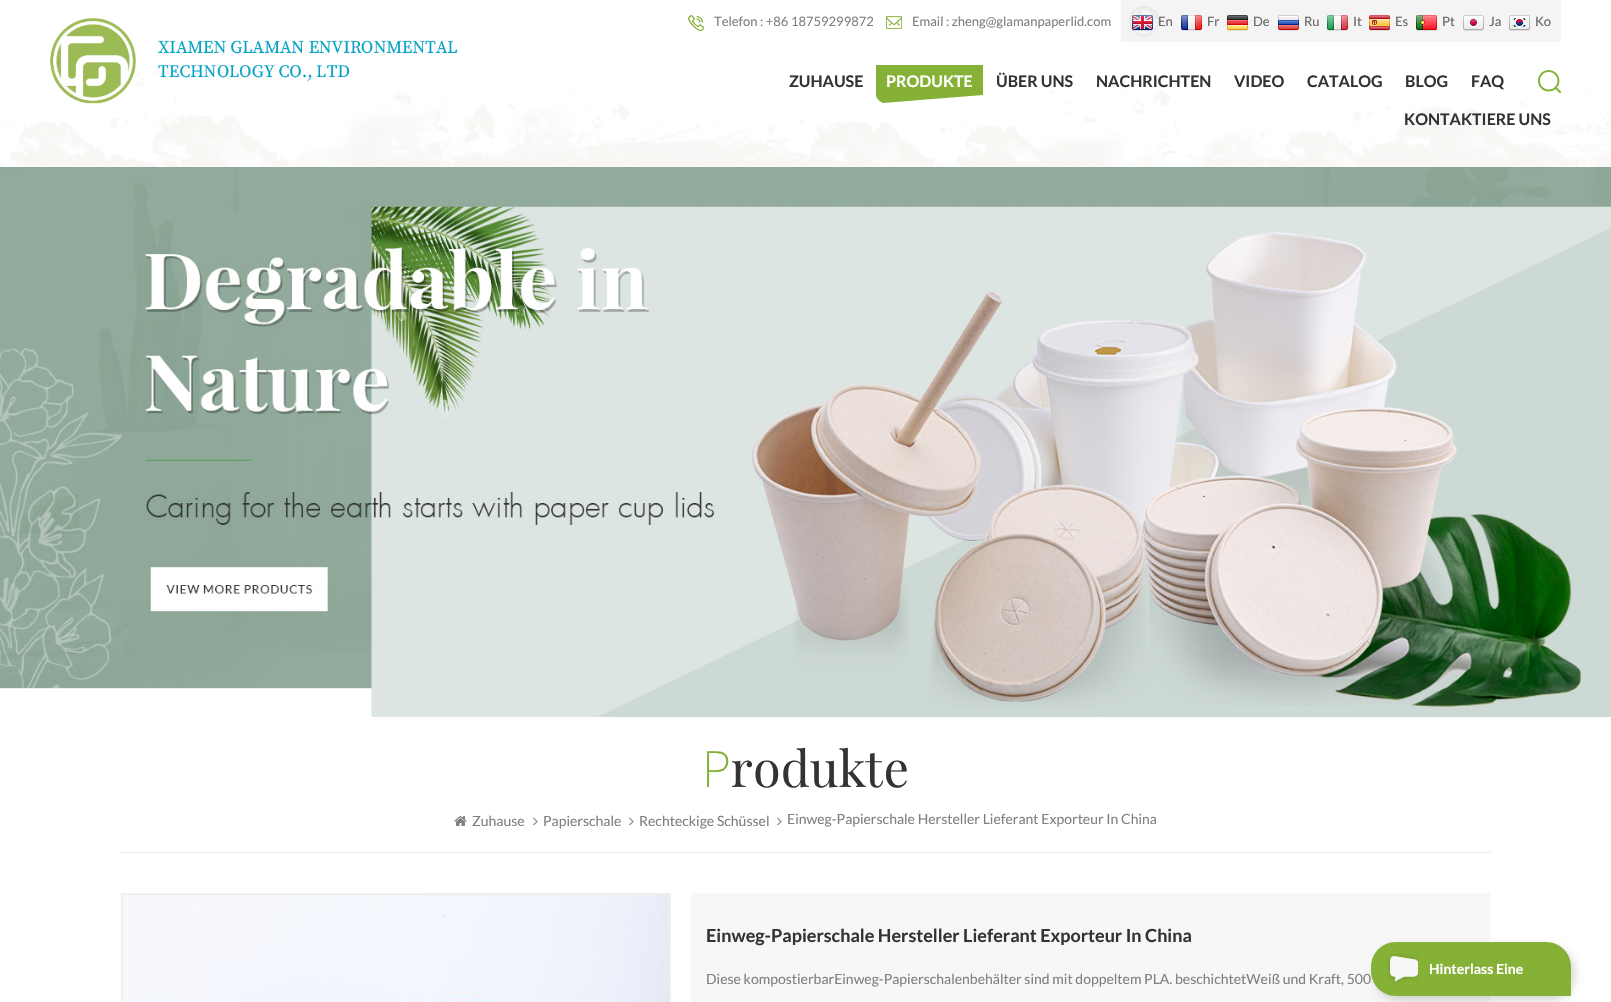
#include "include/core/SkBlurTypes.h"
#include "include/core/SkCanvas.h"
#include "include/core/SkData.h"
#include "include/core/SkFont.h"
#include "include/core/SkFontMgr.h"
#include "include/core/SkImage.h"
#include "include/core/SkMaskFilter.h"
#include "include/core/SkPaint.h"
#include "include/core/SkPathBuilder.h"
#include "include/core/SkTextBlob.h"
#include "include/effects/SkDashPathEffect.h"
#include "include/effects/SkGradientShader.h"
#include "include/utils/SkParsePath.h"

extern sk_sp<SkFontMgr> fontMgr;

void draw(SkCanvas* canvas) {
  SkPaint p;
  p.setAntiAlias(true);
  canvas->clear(SK_ColorWHITE);
  canvas->drawImageRect(SkImages::DeferredFromEncodedData(SkData::MakeFromFileName("images/1.png")), SkRect::MakeLTRB(0, 72, 1611, 167), SkSamplingOptions());
  canvas->drawImageRect(SkImages::DeferredFromEncodedData(SkData::MakeFromFileName("images/2.png")), SkRect::MakeLTRB(50, 18, 136, 104), SkSamplingOptions());
  canvas->drawImageRect(SkImages::DeferredFromEncodedData(SkData::MakeFromFileName("images/3.png")), SkRect::MakeLTRB(158, 40, 458, 81), SkSamplingOptions());
  canvas->drawImageRect(SkImages::DeferredFromEncodedData(SkData::MakeFromFileName("images/4.png")), SkRect::MakeLTRB(688, 15, 704, 31), SkSamplingOptions());
  canvas->drawImageRect(SkImages::DeferredFromEncodedData(SkData::MakeFromFileName("images/5.png")), SkRect::MakeLTRB(886, 16, 902, 29), SkSamplingOptions());
  p.setColor(SkColorSetRGB(244, 244, 244));
  canvas->drawRect(SkRect::MakeLTRB(1121, 0, 1561, 42), p);
  canvas->drawImageRect(SkImages::DeferredFromEncodedData(SkData::MakeFromFileName("images/6.png")), SkRect::MakeLTRB(1129, 6, 1159, 36), SkSamplingOptions());
  canvas->drawImageRect(SkImages::DeferredFromEncodedData(SkData::MakeFromFileName("images/7.png")), SkRect::MakeLTRB(1132, 15, 1153, 31), SkSamplingOptions());
  canvas->drawImageRect(SkImages::DeferredFromEncodedData(SkData::MakeFromFileName("images/8.png")), SkRect::MakeLTRB(1181, 15, 1202, 31), SkSamplingOptions());
  canvas->drawImageRect(SkImages::DeferredFromEncodedData(SkData::MakeFromFileName("images/9.png")), SkRect::MakeLTRB(1227, 15, 1248, 31), SkSamplingOptions());
  canvas->drawImageRect(SkImages::DeferredFromEncodedData(SkData::MakeFromFileName("images/10.png")), SkRect::MakeLTRB(1278, 15, 1299, 31), SkSamplingOptions());
  canvas->drawImageRect(SkImages::DeferredFromEncodedData(SkData::MakeFromFileName("images/11.png")), SkRect::MakeLTRB(1327, 15, 1348, 31), SkSamplingOptions());
  canvas->drawImageRect(SkImages::DeferredFromEncodedData(SkData::MakeFromFileName("images/12.png")), SkRect::MakeLTRB(1369, 15, 1390, 31), SkSamplingOptions());
  canvas->drawImageRect(SkImages::DeferredFromEncodedData(SkData::MakeFromFileName("images/13.png")), SkRect::MakeLTRB(1416, 15, 1437, 31), SkSamplingOptions());
  canvas->drawImageRect(SkImages::DeferredFromEncodedData(SkData::MakeFromFileName("images/14.png")), SkRect::MakeLTRB(1463, 15, 1484, 31), SkSamplingOptions());
  canvas->drawImageRect(SkImages::DeferredFromEncodedData(SkData::MakeFromFileName("images/15.png")), SkRect::MakeLTRB(1509, 15, 1530, 31), SkSamplingOptions());
  canvas->drawImageRect(SkImages::DeferredFromEncodedData(SkData::MakeFromFileName("images/16.png")), SkRect::MakeLTRB(1538, 70, 1561, 93), SkSamplingOptions());
  p.setColor(SkColorSetRGB(133, 177, 54));
  canvas->drawPath(SkPathBuilder().moveTo(876, 65).lineTo(983, 65).lineTo(983, 95).lineTo(883, 103).cubicTo(880, 102, 877, 99, 876, 96).close().detach(), p);
  canvas->drawImageRect(SkImages::DeferredFromEncodedData(SkData::MakeFromFileName("images/17.png")), SkRect::MakeLTRB(0, 167, 1611, 717), SkSamplingOptions());
  p.setColor(SkColorSetRGB(235, 235, 235));
  canvas->drawRect(SkRect::MakeLTRB(121, 852, 1491, 853), p);
  canvas->drawImageRect(SkImages::DeferredFromEncodedData(SkData::MakeFromFileName("images/18.png")), SkRect::MakeLTRB(454, 816, 467, 826), SkSamplingOptions());
  canvas->drawImageRect(SkImages::DeferredFromEncodedData(SkData::MakeFromFileName("images/19.png")), SkRect::MakeLTRB(533, 817, 538, 826), SkSamplingOptions());
  canvas->drawImageRect(SkImages::DeferredFromEncodedData(SkData::MakeFromFileName("images/19.png")), SkRect::MakeLTRB(629, 817, 634, 826), SkSamplingOptions());
  canvas->drawImageRect(SkImages::DeferredFromEncodedData(SkData::MakeFromFileName("images/19.png")), SkRect::MakeLTRB(777, 817, 782, 826), SkSamplingOptions());
  p.setStyle(SkPaint::kStroke_Style);
  p.setStrokeWidth(2);
  p.setColor(SkColorSetRGB(238, 238, 238));
  canvas->drawRect(SkRect::MakeLTRB(122, 894, 670, 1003), p);
  canvas->drawImageRect(SkImages::DeferredFromEncodedData(SkData::MakeFromFileName("images/20.png")), SkRect::MakeLTRB(123, 895, 669, 1002), SkSamplingOptions());
  p.setStyle(SkPaint::kFill_Style);
  p.setColor(SkColorSetRGB(247, 247, 247));
  canvas->drawRect(SkRect::MakeLTRB(691, 893, 1490, 1002), p);
  p.setColor(SkColorSetARGB(38, 0, 0, 0));
  p.setMaskFilter(SkMaskFilter::MakeBlur(kNormal_SkBlurStyle, 4));
  canvas->drawRoundRect(SkRect::MakeLTRB(1375, 947, 1575, 1001), 25, 25, p);
  p.setMaskFilter(nullptr);
  p.setColor(SkColorSetRGB(133, 177, 54));
  canvas->drawPath(SkPathBuilder().moveTo(1396, 942).lineTo(1546, 942).cubicTo(1560, 942, 1571, 953, 1571, 967).lineTo(1571, 996).lineTo(1396, 996).cubicTo(1382, 996, 1371, 985, 1371, 971).lineTo(1371, 967).cubicTo(1371, 953, 1382, 942, 1396, 942).close().detach(), p);
  canvas->drawImageRect(SkImages::DeferredFromEncodedData(SkData::MakeFromFileName("images/21.png")), SkRect::MakeLTRB(1386, 953, 1418, 983), SkSamplingOptions());
  SkFont font1(fontMgr->matchFamilyStyle("Lato", SkFontStyle::Normal()), 13);
  font1.setSubpixel(true);
  p.setColor(SkColorSetRGB(128, 128, 128));
  canvas->drawString("Telefon : +86 18759299872", 714, 26, font1, p);
  canvas->drawString("Email : zheng@glamanpaperlid.com", 912, 26, font1, p);
  p.setColor(SkColorSetRGB(102, 102, 102));
  canvas->drawString("En", 1158, 26, font1, p);
  canvas->drawString("Fr", 1207, 26, font1, p);
  canvas->drawString("De", 1253, 26, font1, p);
  canvas->drawString("Ru", 1304, 26, font1, p);
  canvas->drawString("It", 1353, 26, font1, p);
  canvas->drawString("Es", 1395, 26, font1, p);
  canvas->drawString("Pt", 1442, 26, font1, p);
  canvas->drawString("Ja", 1489, 26, font1, p);
  canvas->drawString("Ko", 1535, 26, font1, p);
  SkFont font2(fontMgr->matchFamilyStyle("Lato", SkFontStyle::Bold()), 16);
  font2.setSubpixel(true);
  p.setColor(SkColorSetRGB(51, 51, 51));
  canvas->drawString("ZUHAUSE", 789, 87, font2, p);
  p.setColor(SK_ColorWHITE);
  canvas->drawString("PRODUKTE", 886, 87, font2, p);
  p.setColor(SkColorSetRGB(51, 51, 51));
  canvas->drawString("ÜBER UNS", 996, 87, font2, p);
  canvas->drawString("NACHRICHTEN", 1096, 87, font2, p);
  canvas->drawString("VIDEO", 1234, 87, font2, p);
  canvas->drawString("CATALOG", 1307, 87, font2, p);
  canvas->drawString("BLOG", 1405, 87, font2, p);
  canvas->drawString("FAQ", 1471, 87, font2, p);
  canvas->drawString("KONTAKTIERE UNS", 1404, 125, font2, p);
  SkFont font3(fontMgr->matchFamilyStyle("Noto Sans", SkFontStyle(200, SkFontStyle::kNormal_Width, SkFontStyle::kUpright_Slant)), 50);
  font3.setSubpixel(true);
  p.setColor(SkColorSetRGB(133, 177, 54));
  canvas->drawString("P", 702, 787, font3, p);
  SkFont font4(fontMgr->matchFamilyStyle("Playfair Display", SkFontStyle::Normal()), 50);
  font4.setSubpixel(true);
  p.setColor(SkColorSetRGB(51, 51, 51));
  canvas->drawString("rodukte", 731, 787, font4, p);
  SkFont font5(fontMgr->matchFamilyStyle("Lato", SkFontStyle::Normal()), 14);
  font5.setSubpixel(true);
  p.setColor(SkColorSetRGB(128, 128, 128));
  canvas->drawString("Zuhause", 472, 826, font5, p);
  canvas->drawString("Papierschale", 543, 826, font5, p);
  canvas->drawString("Rechteckige Schüssel", 639, 826, font5, p);
  canvas->drawString("Einweg-Papierschale Hersteller Lieferant Exporteur In China", 787, 824, font5, p);
  SkFont font6(fontMgr->matchFamilyStyle("Lato", SkFontStyle::Bold()), 18);
  font6.setSubpixel(true);
  p.setColor(SkColorSetRGB(51, 51, 51));
  canvas->drawString("Einweg-Papierschale Hersteller Lieferant Exporteur In China", 706, 942, font6, p);
  p.setColor(SkColorSetRGB(128, 128, 128));
  canvas->drawString("Diese kompostierbarEinweg-Papierschalenbehälter sind mit doppeltem PLA. beschichtetWeiß und Kraft, 500", 706, 984, font5, p);
  SkFont font7(fontMgr->matchFamilyStyle("Lato", SkFontStyle::Bold()), 14);
  font7.setSubpixel(true);
  p.setColor(SK_ColorWHITE);
  canvas->drawString("Hinterlass Eine", 1429, 974, font7, p);
}
